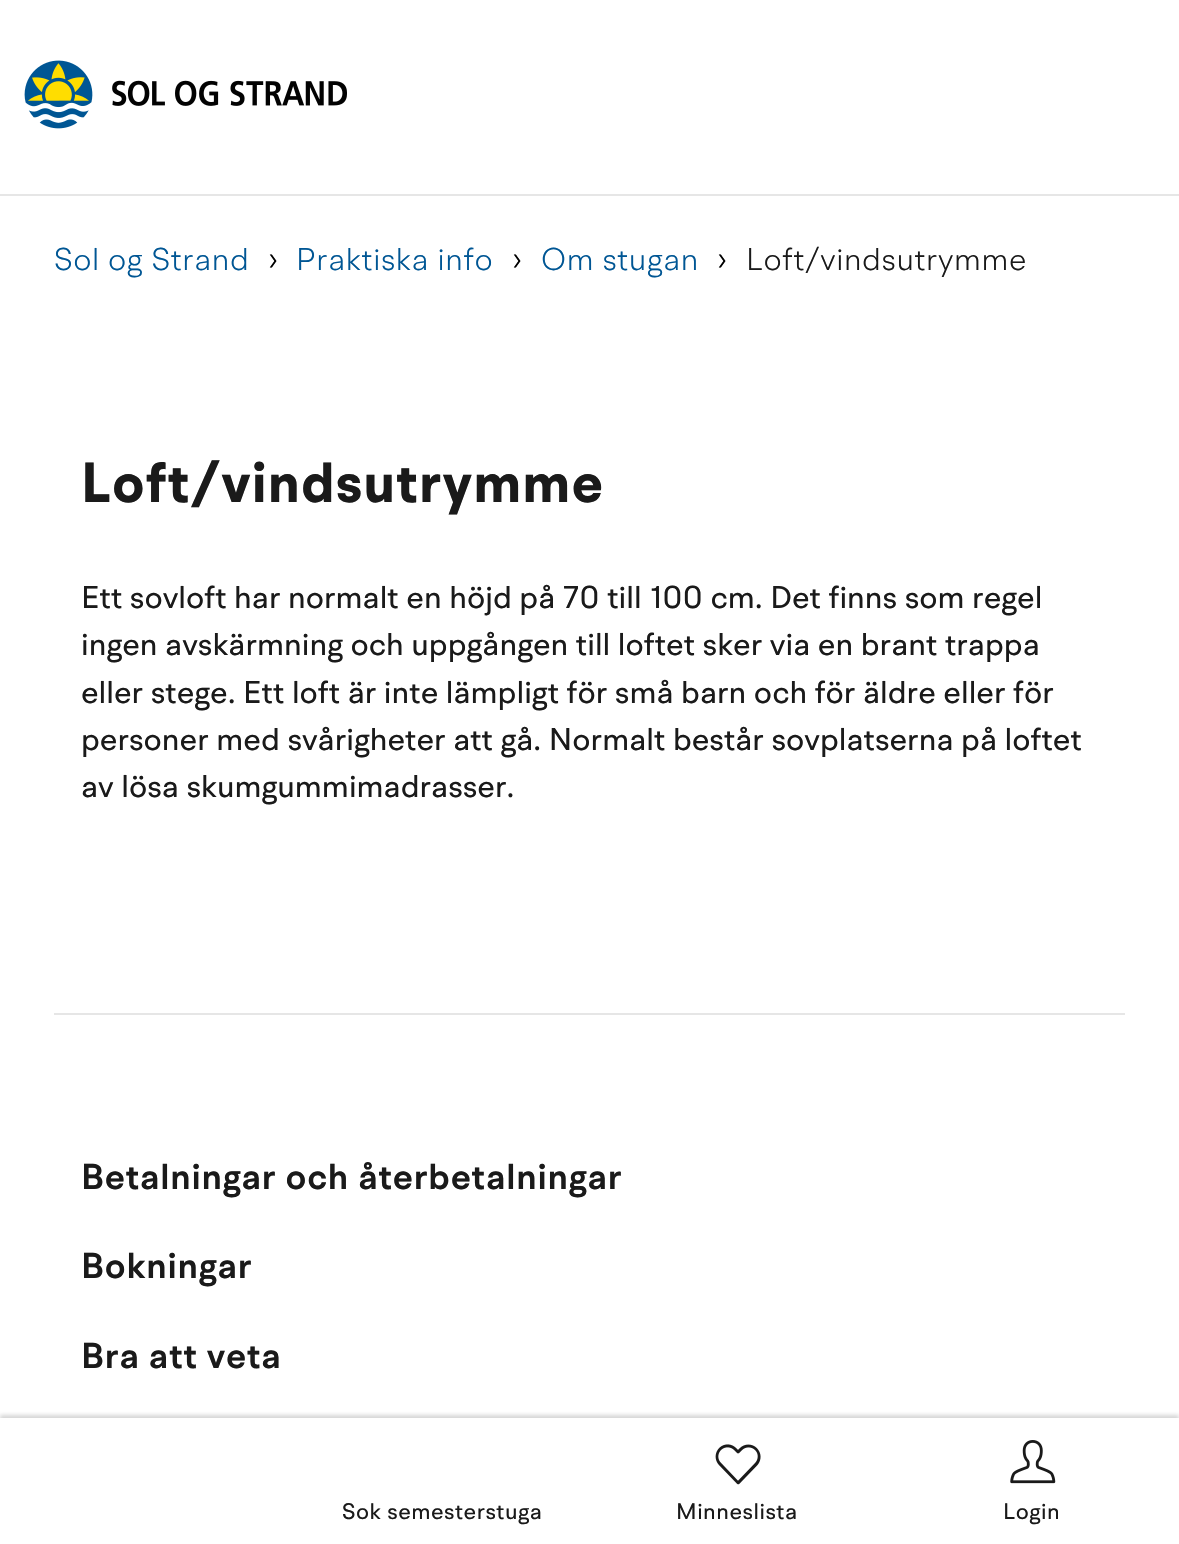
#include "include/core/SkBlurTypes.h"
#include "include/core/SkCanvas.h"
#include "include/core/SkData.h"
#include "include/core/SkFont.h"
#include "include/core/SkFontMgr.h"
#include "include/core/SkImage.h"
#include "include/core/SkMaskFilter.h"
#include "include/core/SkPaint.h"
#include "include/core/SkPathBuilder.h"
#include "include/core/SkTextBlob.h"
#include "include/effects/SkDashPathEffect.h"
#include "include/effects/SkGradientShader.h"
#include "include/utils/SkParsePath.h"

extern sk_sp<SkFontMgr> fontMgr;

void draw(SkCanvas* canvas) {
  SkPaint p;
  p.setAntiAlias(true);
  auto spacedText = [&](const char* s, float x, float y, const SkFont& font, const SkPaint& ink, float letter, float word) {
    std::vector<SkGlyphID> glyphs(font.countText(s, strlen(s), SkTextEncoding::kUTF8));
    std::vector<float> xs(glyphs.size());
    font.textToGlyphs(s, strlen(s), SkTextEncoding::kUTF8, glyphs);
    font.getXPos(glyphs, xs, x);
    float extra = 0;
    for (size_t i = 0; i < glyphs.size(); i++) {
      xs[i] += extra;
      extra += letter + word * (glyphs[i] == font.unicharToGlyph(' '));
    }
    canvas->drawTextBlob(SkTextBlob::MakeFromPosHGlyphs(glyphs, xs, y, font), 0, 0, ink);
  };
  canvas->clear(SK_ColorWHITE);
  p.setColor(SkColorSetRGB(230, 230, 230));
  canvas->drawRect(SkRect::MakeLTRB(0, 194, 1179, 196), p);
  canvas->drawImageRect(SkImages::DeferredFromEncodedData(SkData::MakeFromFileName("images/1.png")), SkRect::MakeLTRB(24, 60, 347, 129), SkSamplingOptions());
  canvas->drawRect(SkRect::MakeLTRB(54, 1013, 1125, 1015), p);
  p.setColor(SkColorSetARGB(46, 22, 22, 23));
  p.setMaskFilter(SkMaskFilter::MakeBlur(kNormal_SkBlurStyle, 2));
  canvas->drawRect(SkRect::MakeLTRB(0, 1415, 1179, 1544), p);
  p.setMaskFilter(nullptr);
  p.setColor(SK_ColorWHITE);
  canvas->drawRect(SkRect::MakeLTRB(0, 1418, 1179, 1544), p);
  canvas->drawImageRect(SkImages::DeferredFromEncodedData(SkData::MakeFromFileName("images/2.png")), SkRect::MakeLTRB(715, 1444, 761, 1485), SkSamplingOptions());
  canvas->drawImageRect(SkImages::DeferredFromEncodedData(SkData::MakeFromFileName("images/3.png")), SkRect::MakeLTRB(1010, 1440, 1056, 1484), SkSamplingOptions());
  SkFont font1(fontMgr->matchFamilyStyle("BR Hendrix", SkFontStyle(300, SkFontStyle::kNormal_Width, SkFontStyle::kUpright_Slant)), 31.5f);
  font1.setSubpixel(true);
  p.setColor(SkColorSetRGB(0, 86, 148));
  spacedText("Sol og Strand", 54, 270, font1, p, 0.6f, 0);
  p.setColor(SK_ColorBLACK);
  spacedText("›", 268, 270, font1, p, 0.6f, 0);
  p.setColor(SkColorSetRGB(0, 86, 148));
  spacedText("Praktiska info", 296, 270, font1, p, 0.6f, 0);
  p.setColor(SK_ColorBLACK);
  spacedText("›", 512, 270, font1, p, 0.6f, 0);
  p.setColor(SkColorSetRGB(0, 86, 148));
  spacedText("Om stugan", 541, 270, font1, p, 0.6f, 0);
  p.setColor(SK_ColorBLACK);
  spacedText("›", 717, 270, font1, p, 0.6f, 0);
  p.setColor(SkColorSetRGB(26, 26, 26));
  spacedText("Loft/vindsutrymme", 746, 270, font1, p, 0.6f, 0);
  SkFont font2(fontMgr->matchFamilyStyle("BR Hendrix", SkFontStyle::Bold()), 56.25f);
  font2.setSubpixel(true);
  spacedText("Loft/vindsutrymme", 81, 502, font2, p, 1.1f, 0);
  SkFont font3(fontMgr->matchFamilyStyle("BR Hendrix", SkFontStyle::Normal()), 31.5f);
  font3.setSubpixel(true);
  canvas->drawString("Ett sovloft har normalt en höjd på 70 till 100 cm. Det finns som regel", 81, 608, font3, p);
  canvas->drawString("ingen avskärmning och uppgången till loftet sker via en brant trappa", 81, 655, font3, p);
  canvas->drawString("eller stege. Ett loft är inte lämpligt för små barn och för äldre eller för", 81, 703, font3, p);
  canvas->drawString("personer med svårigheter att gå. Normalt består sovplatserna på loftet", 81, 750, font3, p);
  canvas->drawString("av lösa skumgummimadrasser.", 81, 797, font3, p);
  SkFont font4(fontMgr->matchFamilyStyle("BR Hendrix", SkFontStyle(600, SkFontStyle::kNormal_Width, SkFontStyle::kUpright_Slant)), 36);
  font4.setSubpixel(true);
  spacedText("Betalningar och återbetalningar", 81, 1189, font4, p, 0.75f, 0);
  spacedText("Bokningar", 81, 1278, font4, p, 0.75f, 0);
  spacedText("Bra att veta", 81, 1368, font4, p, 0.75f, 0);
  SkFont font5(fontMgr->matchFamilyStyle("BR Hendrix", SkFontStyle::Normal()), 22.5f);
  font5.setSubpixel(true);
  spacedText("Sok semesterstuga", 342, 1519, font5, p, 0.5f, 0);
  spacedText("Minneslista", 676, 1519, font5, p, 0.5f, 0);
  spacedText("Login", 1003, 1519, font5, p, 0.5f, 0);
}
